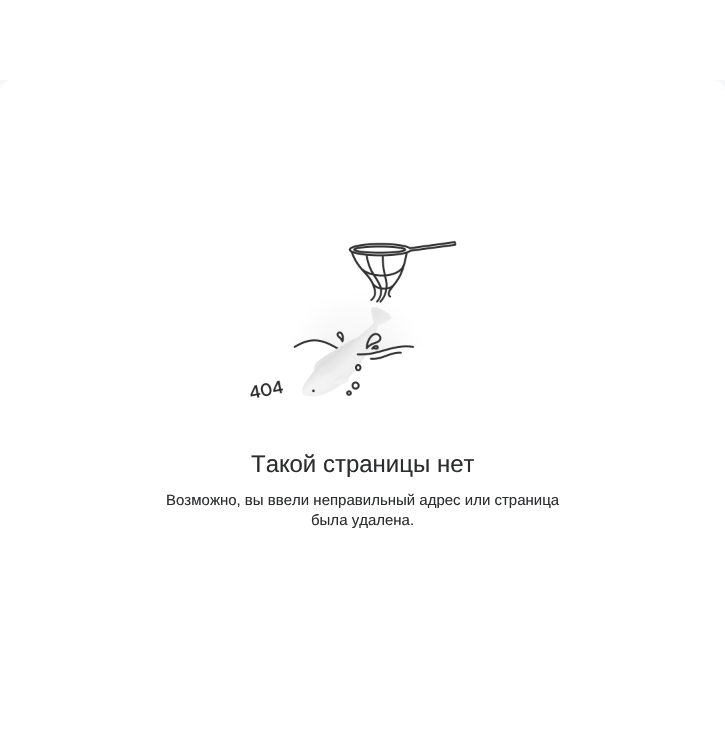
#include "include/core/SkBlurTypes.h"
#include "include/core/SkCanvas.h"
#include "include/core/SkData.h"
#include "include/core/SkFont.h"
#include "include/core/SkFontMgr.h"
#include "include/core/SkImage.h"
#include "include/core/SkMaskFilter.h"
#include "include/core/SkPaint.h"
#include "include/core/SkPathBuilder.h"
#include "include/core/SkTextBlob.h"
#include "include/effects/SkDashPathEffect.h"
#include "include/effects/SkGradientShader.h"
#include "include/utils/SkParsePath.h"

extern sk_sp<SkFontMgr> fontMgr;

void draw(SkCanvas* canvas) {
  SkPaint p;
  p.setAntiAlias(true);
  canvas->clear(SK_ColorWHITE);
  p.setColor(SkColorSetRGB(246, 247, 248));
  canvas->drawRect(SkRect::MakeLTRB(0, 80, 725, 92), p);
  p.setColor(SK_ColorWHITE);
  canvas->drawPath(SkPathBuilder().moveTo(12, 80).lineTo(713, 80).cubicTo(719.5f, 80, 725, 85.5f, 725, 92).lineTo(725, 747).lineTo(0, 747).lineTo(0, 92).cubicTo(0, 85.5f, 5.5f, 80, 12, 80).close().detach(), p);
  canvas->drawImageRect(SkImages::DeferredFromEncodedData(SkData::MakeFromFileName("images/1.png")), SkRect::MakeLTRB(250, 240, 457, 398), SkSamplingOptions());
  SkFont font1(fontMgr->matchFamilyStyle("Liberation Sans", SkFontStyle::Normal()), 24);
  font1.setSubpixel(true);
  p.setColor(SkColorSetRGB(44, 45, 46));
  canvas->drawString("Такой страницы нет", 251, 472, font1, p);
  SkFont font2(fontMgr->matchFamilyStyle("Liberation Sans", SkFontStyle::Normal()), 15);
  font2.setSubpixel(true);
  canvas->drawString("Возможно, вы ввели неправильный адрес или страница", 166, 505, font2, p);
  canvas->drawString("была удалена.", 311, 525, font2, p);
}
